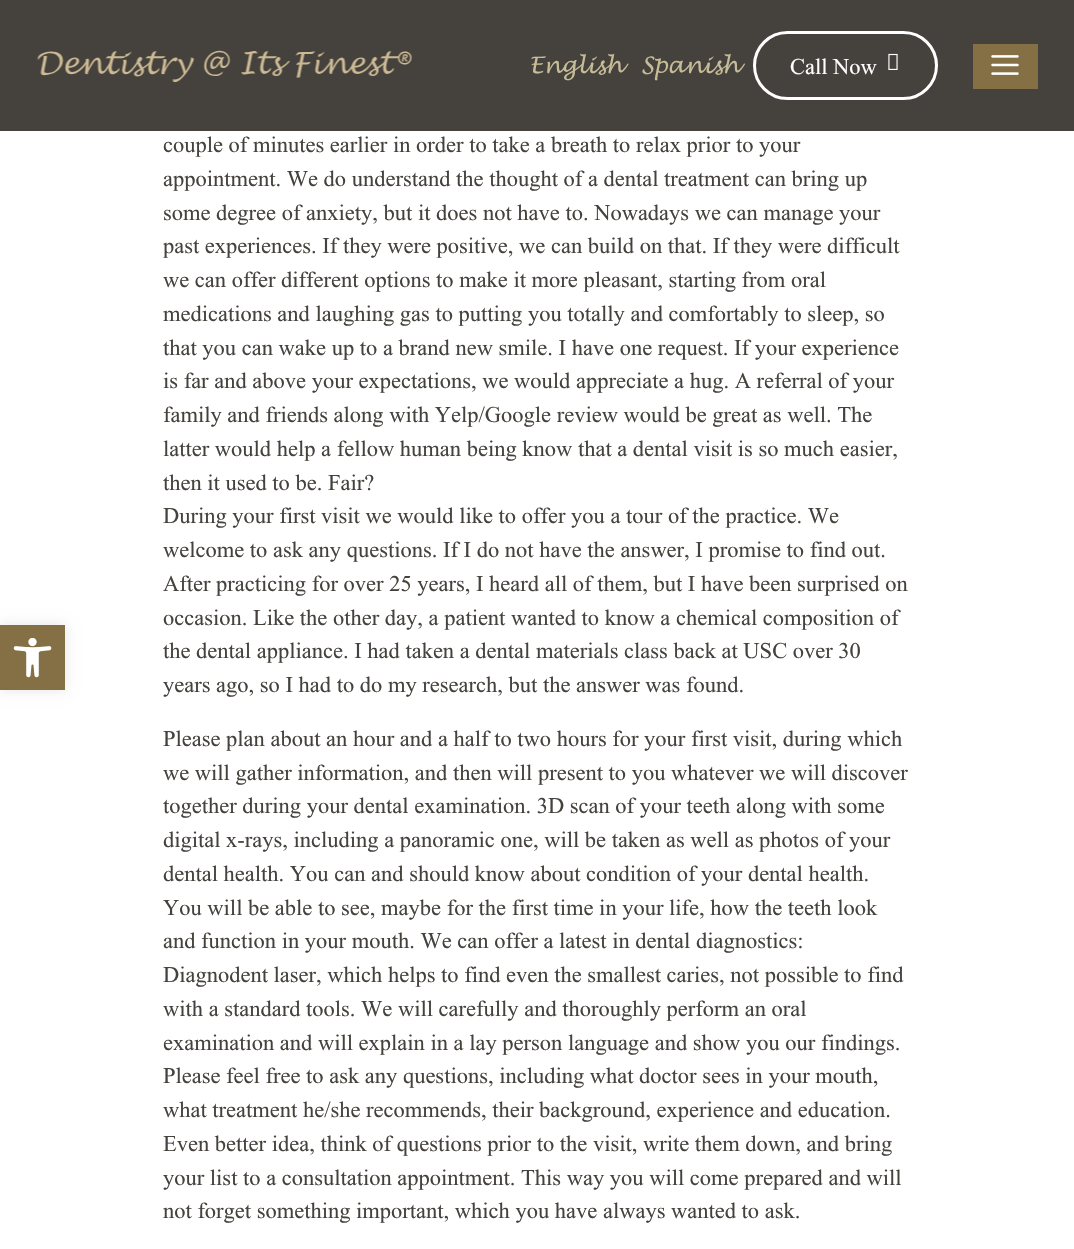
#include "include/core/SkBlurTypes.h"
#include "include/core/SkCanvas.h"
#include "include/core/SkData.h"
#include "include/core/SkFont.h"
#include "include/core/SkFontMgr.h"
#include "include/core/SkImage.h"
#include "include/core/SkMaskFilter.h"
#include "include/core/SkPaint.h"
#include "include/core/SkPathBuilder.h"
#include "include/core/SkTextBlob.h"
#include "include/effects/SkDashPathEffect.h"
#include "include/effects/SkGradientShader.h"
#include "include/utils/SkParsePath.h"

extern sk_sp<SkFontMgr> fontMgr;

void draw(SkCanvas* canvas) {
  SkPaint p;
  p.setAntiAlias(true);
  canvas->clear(SK_ColorWHITE);
  p.setColor(SkColorSetRGB(69, 65, 61));
  canvas->drawRect(SkRect::MakeLTRB(0, 0, 1074, 131), p);
  canvas->drawImageRect(SkImages::DeferredFromEncodedData(SkData::MakeFromFileName("images/1.png")), SkRect::MakeLTRB(37, 50, 413, 83), SkSamplingOptions());
  p.setStyle(SkPaint::kStroke_Style);
  p.setStrokeWidth(3);
  p.setColor(SK_ColorWHITE);
  canvas->drawRoundRect(SkRect::MakeLTRB(754.5f, 32.5f, 936.5f, 98.5f), 33, 33, p);
  canvas->drawImageRect(SkImages::DeferredFromEncodedData(SkData::MakeFromFileName("images/2.png")), SkRect::MakeLTRB(888, 53, 898, 70), SkSamplingOptions());
  p.setStyle(SkPaint::kFill_Style);
  p.setColor(SkColorSetRGB(133, 112, 69));
  canvas->drawRect(SkRect::MakeLTRB(973, 44, 1038, 89), p);
  canvas->drawImageRect(SkImages::DeferredFromEncodedData(SkData::MakeFromFileName("images/3.png")), SkRect::MakeLTRB(991, 55, 1019, 75), SkSamplingOptions());
  p.setColor(SkColorSetARGB(26, 0, 0, 0));
  p.setMaskFilter(SkMaskFilter::MakeBlur(kNormal_SkBlurStyle, 6));
  canvas->drawRect(SkRect::MakeLTRB(0, 625, 65, 690), p);
  p.setMaskFilter(nullptr);
  p.setColor(SkColorSetRGB(133, 112, 69));
  canvas->drawRect(SkRect::MakeLTRB(0, 625, 65, 690), p);
  canvas->drawImageRect(SkImages::DeferredFromEncodedData(SkData::MakeFromFileName("images/4.png")), SkRect::MakeLTRB(13, 638, 52, 678), SkSamplingOptions());
  SkFont font1(fontMgr->matchFamilyStyle("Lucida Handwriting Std", SkFontStyle::Normal()), 22.5f);
  font1.setSubpixel(true);
  p.setColor(SkColorSetRGB(198, 188, 151));
  canvas->drawString("English", 529, 73, font1, p);
  canvas->drawString("Spanish", 641, 73, font1, p);
  SkFont font2(fontMgr->matchFamilyStyle("Times New Roman", SkFontStyle::Normal()), 22.5f);
  font2.setSubpixel(true);
  p.setColor(SK_ColorWHITE);
  canvas->drawString("Call Now", 790, 74, font2, p);
  p.setColor(SkColorSetRGB(69, 66, 61));
  canvas->drawString("couple of minutes earlier in order to take a breath to relax prior to your", 163, 152, font2, p);
  canvas->drawString("appointment. We do understand the thought of a dental treatment can bring up", 163, 186, font2, p);
  canvas->drawString("some degree of anxiety, but it does not have to. Nowadays we can manage your", 163, 220, font2, p);
  canvas->drawString("past experiences. If they were positive, we can build on that. If they were difficult", 163, 253, font2, p);
  canvas->drawString("we can offer different options to make it more pleasant, starting from oral", 163, 287, font2, p);
  canvas->drawString("medications and laughing gas to putting you totally and comfortably to sleep, so", 163, 321, font2, p);
  canvas->drawString("that you can wake up to a brand new smile. I have one request. If your experience", 163, 355, font2, p);
  canvas->drawString("is far and above your expectations, we would appreciate a hug. A referral of your", 163, 388, font2, p);
  canvas->drawString("family and friends along with Yelp/Google review would be great as well. The", 163, 422, font2, p);
  canvas->drawString("latter would help a fellow human being know that a dental visit is so much easier,", 163, 456, font2, p);
  canvas->drawString("then it used to be. Fair?", 163, 490, font2, p);
  canvas->drawString("During your first visit we would like to offer you a tour of the practice. We", 163, 523, font2, p);
  canvas->drawString("welcome to ask any questions. If I do not have the answer, I promise to find out.", 163, 557, font2, p);
  canvas->drawString("After practicing for over 25 years, I heard all of them, but I have been surprised on", 163, 591, font2, p);
  canvas->drawString("occasion. Like the other day, a patient wanted to know a chemical composition of", 163, 625, font2, p);
  canvas->drawString("the dental appliance. I had taken a dental materials class back at USC over 30", 163, 658, font2, p);
  canvas->drawString("years ago, so I had to do my research, but the answer was found.", 163, 692, font2, p);
  canvas->drawString("Please plan about an hour and a half to two hours for your first visit, during which", 163, 746, font2, p);
  canvas->drawString("we will gather information, and then will present to you whatever we will discover", 163, 780, font2, p);
  canvas->drawString("together during your dental examination. 3D scan of your teeth along with some", 163, 813, font2, p);
  canvas->drawString("digital x-rays, including a panoramic one, will be taken as well as photos of your", 163, 847, font2, p);
  canvas->drawString("dental health. You can and should know about condition of your dental health.", 163, 881, font2, p);
  canvas->drawString("You will be able to see, maybe for the first time in your life, how the teeth look", 163, 915, font2, p);
  canvas->drawString("and function in your mouth. We can offer a latest in dental diagnostics:", 163, 948, font2, p);
  canvas->drawString("Diagnodent laser, which helps to find even the smallest caries, not possible to find", 163, 982, font2, p);
  canvas->drawString("with a standard tools. We will carefully and thoroughly perform an oral", 163, 1016, font2, p);
  canvas->drawString("examination and will explain in a lay person language and show you our findings.", 163, 1050, font2, p);
  canvas->drawString("Please feel free to ask any questions, including what doctor sees in your mouth,", 163, 1083, font2, p);
  canvas->drawString("what treatment he/she recommends, their background, experience and education.", 163, 1117, font2, p);
  canvas->drawString("Even better idea, think of questions prior to the visit, write them down, and bring", 163, 1151, font2, p);
  canvas->drawString("your list to a consultation appointment. This way you will come prepared and will", 163, 1185, font2, p);
  canvas->drawString("not forget something important, which you have always wanted to ask.", 163, 1218, font2, p);
}
